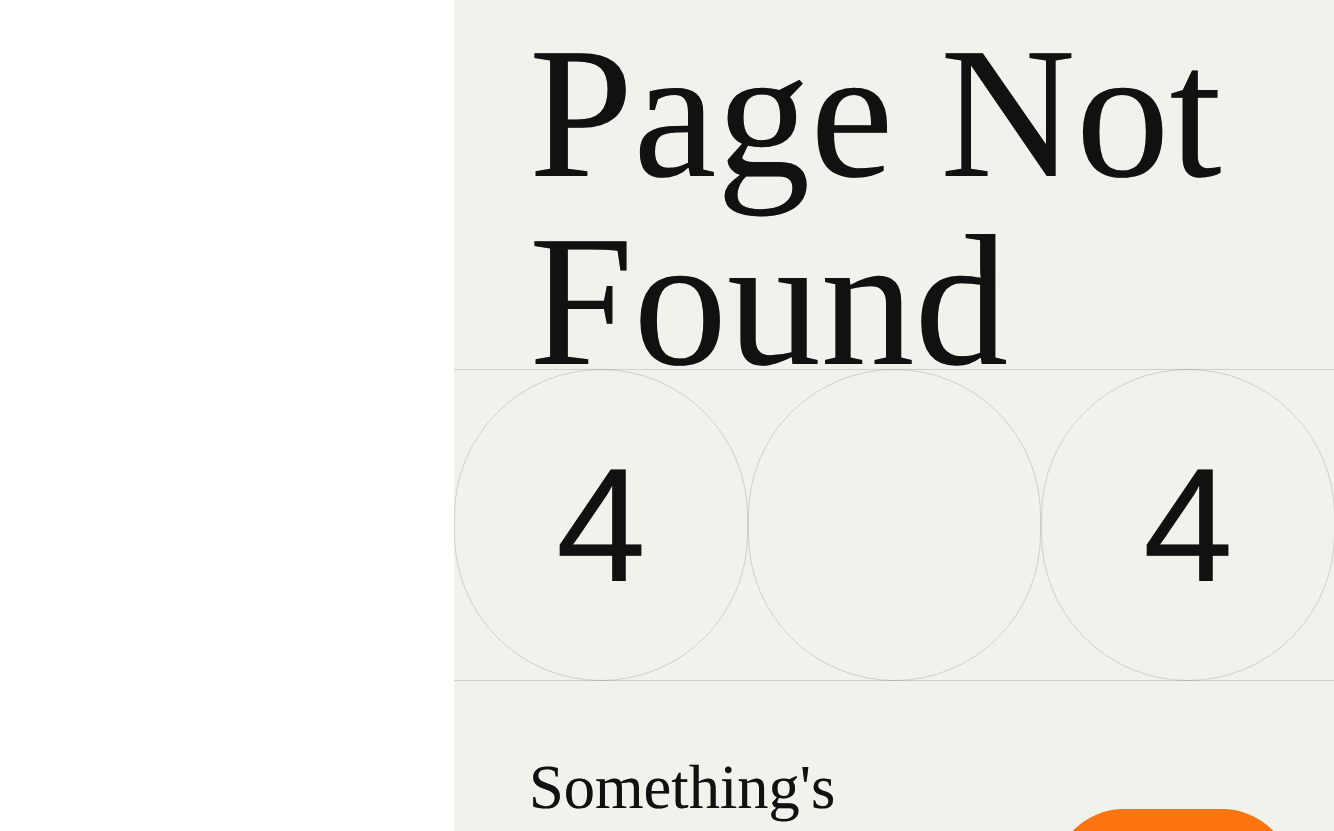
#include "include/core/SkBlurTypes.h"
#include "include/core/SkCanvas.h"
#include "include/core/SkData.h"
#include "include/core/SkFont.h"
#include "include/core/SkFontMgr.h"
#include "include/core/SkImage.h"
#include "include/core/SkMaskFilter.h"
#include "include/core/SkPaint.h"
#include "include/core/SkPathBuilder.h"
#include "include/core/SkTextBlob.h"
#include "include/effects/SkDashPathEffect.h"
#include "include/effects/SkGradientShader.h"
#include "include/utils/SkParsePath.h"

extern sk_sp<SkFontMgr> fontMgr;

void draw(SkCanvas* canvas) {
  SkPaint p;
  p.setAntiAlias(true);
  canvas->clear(SK_ColorWHITE);
  p.setColor(SkColorSetRGB(241, 242, 235));
  canvas->drawRect(SkRect::MakeLTRB(454, 0, 1334, 831), p);
  p.setStyle(SkPaint::kStroke_Style);
  p.setStrokeWidth(1);
  p.setColor(SkColorSetRGB(207, 208, 202));
  canvas->drawRoundRect(SkRect::MakeLTRB(454.5f, 369.5f, 747.5f, 680.5f), 146.5f, 146.5f, p);
  canvas->drawRoundRect(SkRect::MakeLTRB(748.5f, 369.5f, 1040.5f, 680.5f), 146, 146, p);
  canvas->drawRoundRect(SkRect::MakeLTRB(1041.5f, 369.5f, 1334.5f, 680.5f), 146.5f, 146.5f, p);
  p.setStyle(SkPaint::kFill_Style);
  p.setColor(SkColorSetARGB(38, 17, 17, 17));
  canvas->drawRect(SkRect::MakeLTRB(454, 369, 1334, 370), p);
  canvas->drawRect(SkRect::MakeLTRB(454, 680, 1334, 681), p);
  p.setColor(SkColorSetRGB(253, 117, 17));
  canvas->drawRoundRect(SkRect::MakeLTRB(1053, 809, 1293, 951), 120, 120, p);
  SkFont font1(fontMgr->matchFamilyStyle("Liberation Serif", SkFontStyle::Normal()), 187.5f);
  font1.setSubpixel(true);
  p.setColor(SkColorSetRGB(17, 17, 17));
  canvas->drawString("Page Not", 529, 176, font1, p);
  canvas->drawString("Found", 529, 364, font1, p);
  SkFont font2(fontMgr->matchFamilyStyle("Liberation Sans", SkFontStyle::Normal()), 162);
  font2.setSubpixel(true);
  canvas->drawString("4", 556, 581, font2, p);
  canvas->drawString("4", 1143, 581, font2, p);
  SkFont font3(fontMgr->matchFamilyStyle("Liberation Serif", SkFontStyle::Normal()), 62.5f);
  font3.setSubpixel(true);
  canvas->drawString("Something's", 529, 808, font3, p);
}
